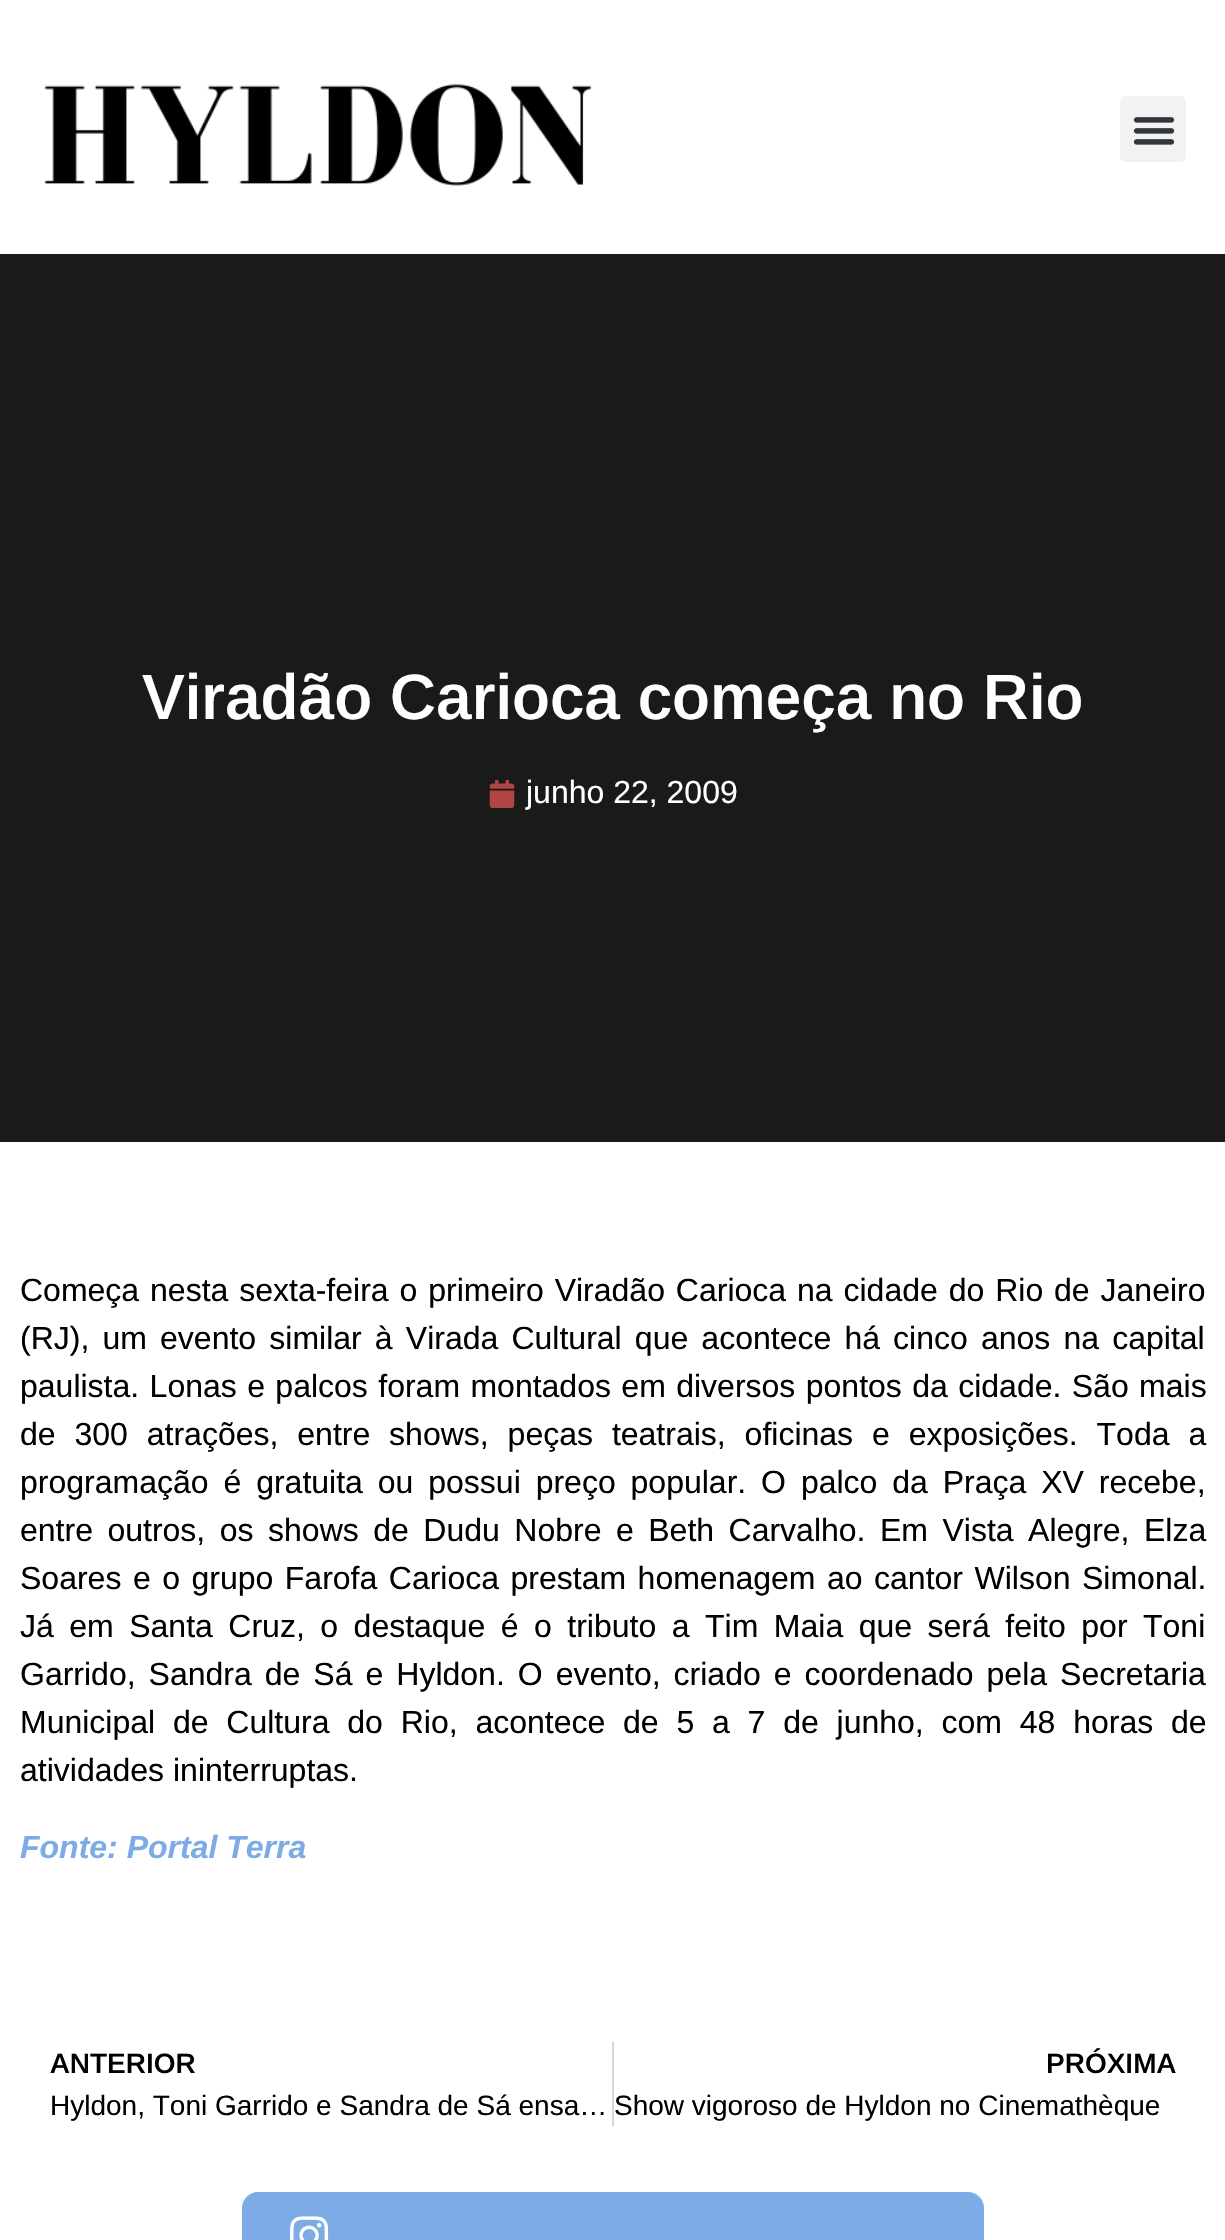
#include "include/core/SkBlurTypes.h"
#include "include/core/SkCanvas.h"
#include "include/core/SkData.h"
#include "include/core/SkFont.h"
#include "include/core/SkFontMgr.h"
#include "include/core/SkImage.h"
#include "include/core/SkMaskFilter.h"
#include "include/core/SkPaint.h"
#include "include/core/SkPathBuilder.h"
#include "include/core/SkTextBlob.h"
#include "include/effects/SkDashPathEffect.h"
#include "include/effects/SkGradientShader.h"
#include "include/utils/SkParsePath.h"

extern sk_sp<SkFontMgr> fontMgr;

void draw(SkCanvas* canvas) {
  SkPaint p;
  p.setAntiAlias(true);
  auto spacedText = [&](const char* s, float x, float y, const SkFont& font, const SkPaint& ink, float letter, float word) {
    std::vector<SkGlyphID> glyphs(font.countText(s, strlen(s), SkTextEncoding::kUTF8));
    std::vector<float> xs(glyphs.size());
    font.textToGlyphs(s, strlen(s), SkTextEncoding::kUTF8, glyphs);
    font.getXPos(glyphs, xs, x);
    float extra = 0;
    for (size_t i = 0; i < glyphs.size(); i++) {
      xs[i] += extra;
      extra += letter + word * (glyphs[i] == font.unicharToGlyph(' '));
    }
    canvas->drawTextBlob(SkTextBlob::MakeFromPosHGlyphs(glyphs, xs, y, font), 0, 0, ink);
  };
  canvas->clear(SkColorSetRGB(26, 26, 26));
  p.setColor(SK_ColorWHITE);
  canvas->drawRect(SkRect::MakeLTRB(0, 0, 1225, 254), p);
  canvas->drawImageRect(SkImages::DeferredFromEncodedData(SkData::MakeFromFileName("images/1.png")), SkRect::MakeLTRB(44, 84, 592, 186), SkSamplingOptions());
  p.setColor(SkColorSetRGB(242, 242, 242));
  canvas->drawRoundRect(SkRect::MakeLTRB(1120, 96, 1186, 162), 6, 6, p);
  canvas->drawImageRect(SkImages::DeferredFromEncodedData(SkData::MakeFromFileName("images/2.png")), SkRect::MakeLTRB(1133, 117, 1175, 145), SkSamplingOptions());
  canvas->drawImageRect(SkImages::DeferredFromEncodedData(SkData::MakeFromFileName("images/3.png")), SkRect::MakeLTRB(489, 780, 515, 808), SkSamplingOptions());
  p.setColor(SK_ColorWHITE);
  canvas->drawRect(SkRect::MakeLTRB(0, 1142, 1225, 2240), p);
  p.setColor(SkColorSetRGB(213, 216, 220));
  canvas->drawRect(SkRect::MakeLTRB(612, 2042, 614, 2126), p);
  p.setColor(SkColorSetRGB(125, 171, 230));
  canvas->drawRoundRect(SkRect::MakeLTRB(242, 2192, 984, 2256), 16, 16, p);
  canvas->drawImageRect(SkImages::DeferredFromEncodedData(SkData::MakeFromFileName("images/4.png")), SkRect::MakeLTRB(290, 2216, 329, 2240), SkSamplingOptions());
  SkFont font1(fontMgr->matchFamilyStyle("Arimo", SkFontStyle(600, SkFontStyle::kNormal_Width, SkFontStyle::kUpright_Slant)), 64);
  font1.setSubpixel(true);
  p.setColor(SK_ColorWHITE);
  canvas->drawString("Viradão Carioca começa no Rio", 142, 719, font1, p);
  SkFont font2(fontMgr->matchFamilyStyle("Arimo", SkFontStyle::Normal()), 32);
  font2.setSubpixel(true);
  canvas->drawString("junho 22, 2009", 526, 803, font2, p);
  p.setColor(SK_ColorBLACK);
  spacedText("Começa nesta sexta-feira o primeiro Viradão Carioca na cidade do Rio de Janeiro", 20, 1301, font2, p, 0, 2);
  spacedText("(RJ), um evento similar à Virada Cultural que acontece há cinco anos na capital", 20, 1349, font2, p, 0, 4.25f);
  spacedText("paulista. Lonas e palcos foram montados em diversos pontos da cidade. São mais", 20, 1397, font2, p, 0, 1.5f);
  spacedText("de 300 atrações, entre shows, peças teatrais, oficinas e exposições. Toda a", 20, 1445, font2, p, 0, 10);
  spacedText("programação é gratuita ou possui preço popular. O palco da Praça XV recebe,", 20, 1493, font2, p, 0, 6);
  spacedText("entre outros, os shows de Dudu Nobre e Beth Carvalho. Em Vista Alegre, Elza", 20, 1541, font2, p, 0, 5.6f);
  spacedText("Soares e o grupo Farofa Carioca prestam homenagem ao cantor Wilson Simonal.", 20, 1589, font2, p, 0, 2.6f);
  spacedText("Já em Santa Cruz, o destaque é o tributo a Tim Maia que será feito por Toni", 20, 1637, font2, p, 0, 6.6f);
  spacedText("Garrido, Sandra de Sá e Hyldon. O evento, criado e coordenado pela Secretaria", 20, 1685, font2, p, 0, 4.1f);
  spacedText("Municipal de Cultura do Rio, acontece de 5 a 7 de junho, com 48 horas de", 20, 1733, font2, p, 0, 8.9f);
  canvas->drawString("atividades ininterruptas.", 20, 1781, font2, p);
  SkFont font3(fontMgr->matchFamilyStyle("Arimo", SkFontStyle::BoldItalic()), 32);
  font3.setSubpixel(true);
  p.setColor(SkColorSetRGB(125, 171, 230));
  canvas->drawString("Fonte: Portal Terra", 20, 1858, font3, p);
  SkFont font4(fontMgr->matchFamilyStyle("Arimo", SkFontStyle(600, SkFontStyle::kNormal_Width, SkFontStyle::kUpright_Slant)), 28);
  font4.setSubpixel(true);
  p.setColor(SK_ColorBLACK);
  canvas->drawString("ANTERIOR", 50, 2073, font4, p);
  SkFont font5(fontMgr->matchFamilyStyle("Arimo", SkFontStyle::Normal()), 28);
  font5.setSubpixel(true);
  canvas->drawString("Hyldon, Toni Garrido e Sandra de Sá ensa…", 50, 2115, font5, p);
  canvas->drawString("PRÓXIMA", 1046, 2073, font4, p);
  canvas->drawString("Show vigoroso de Hyldon no Cinemathèque", 614, 2115, font5, p);
}
